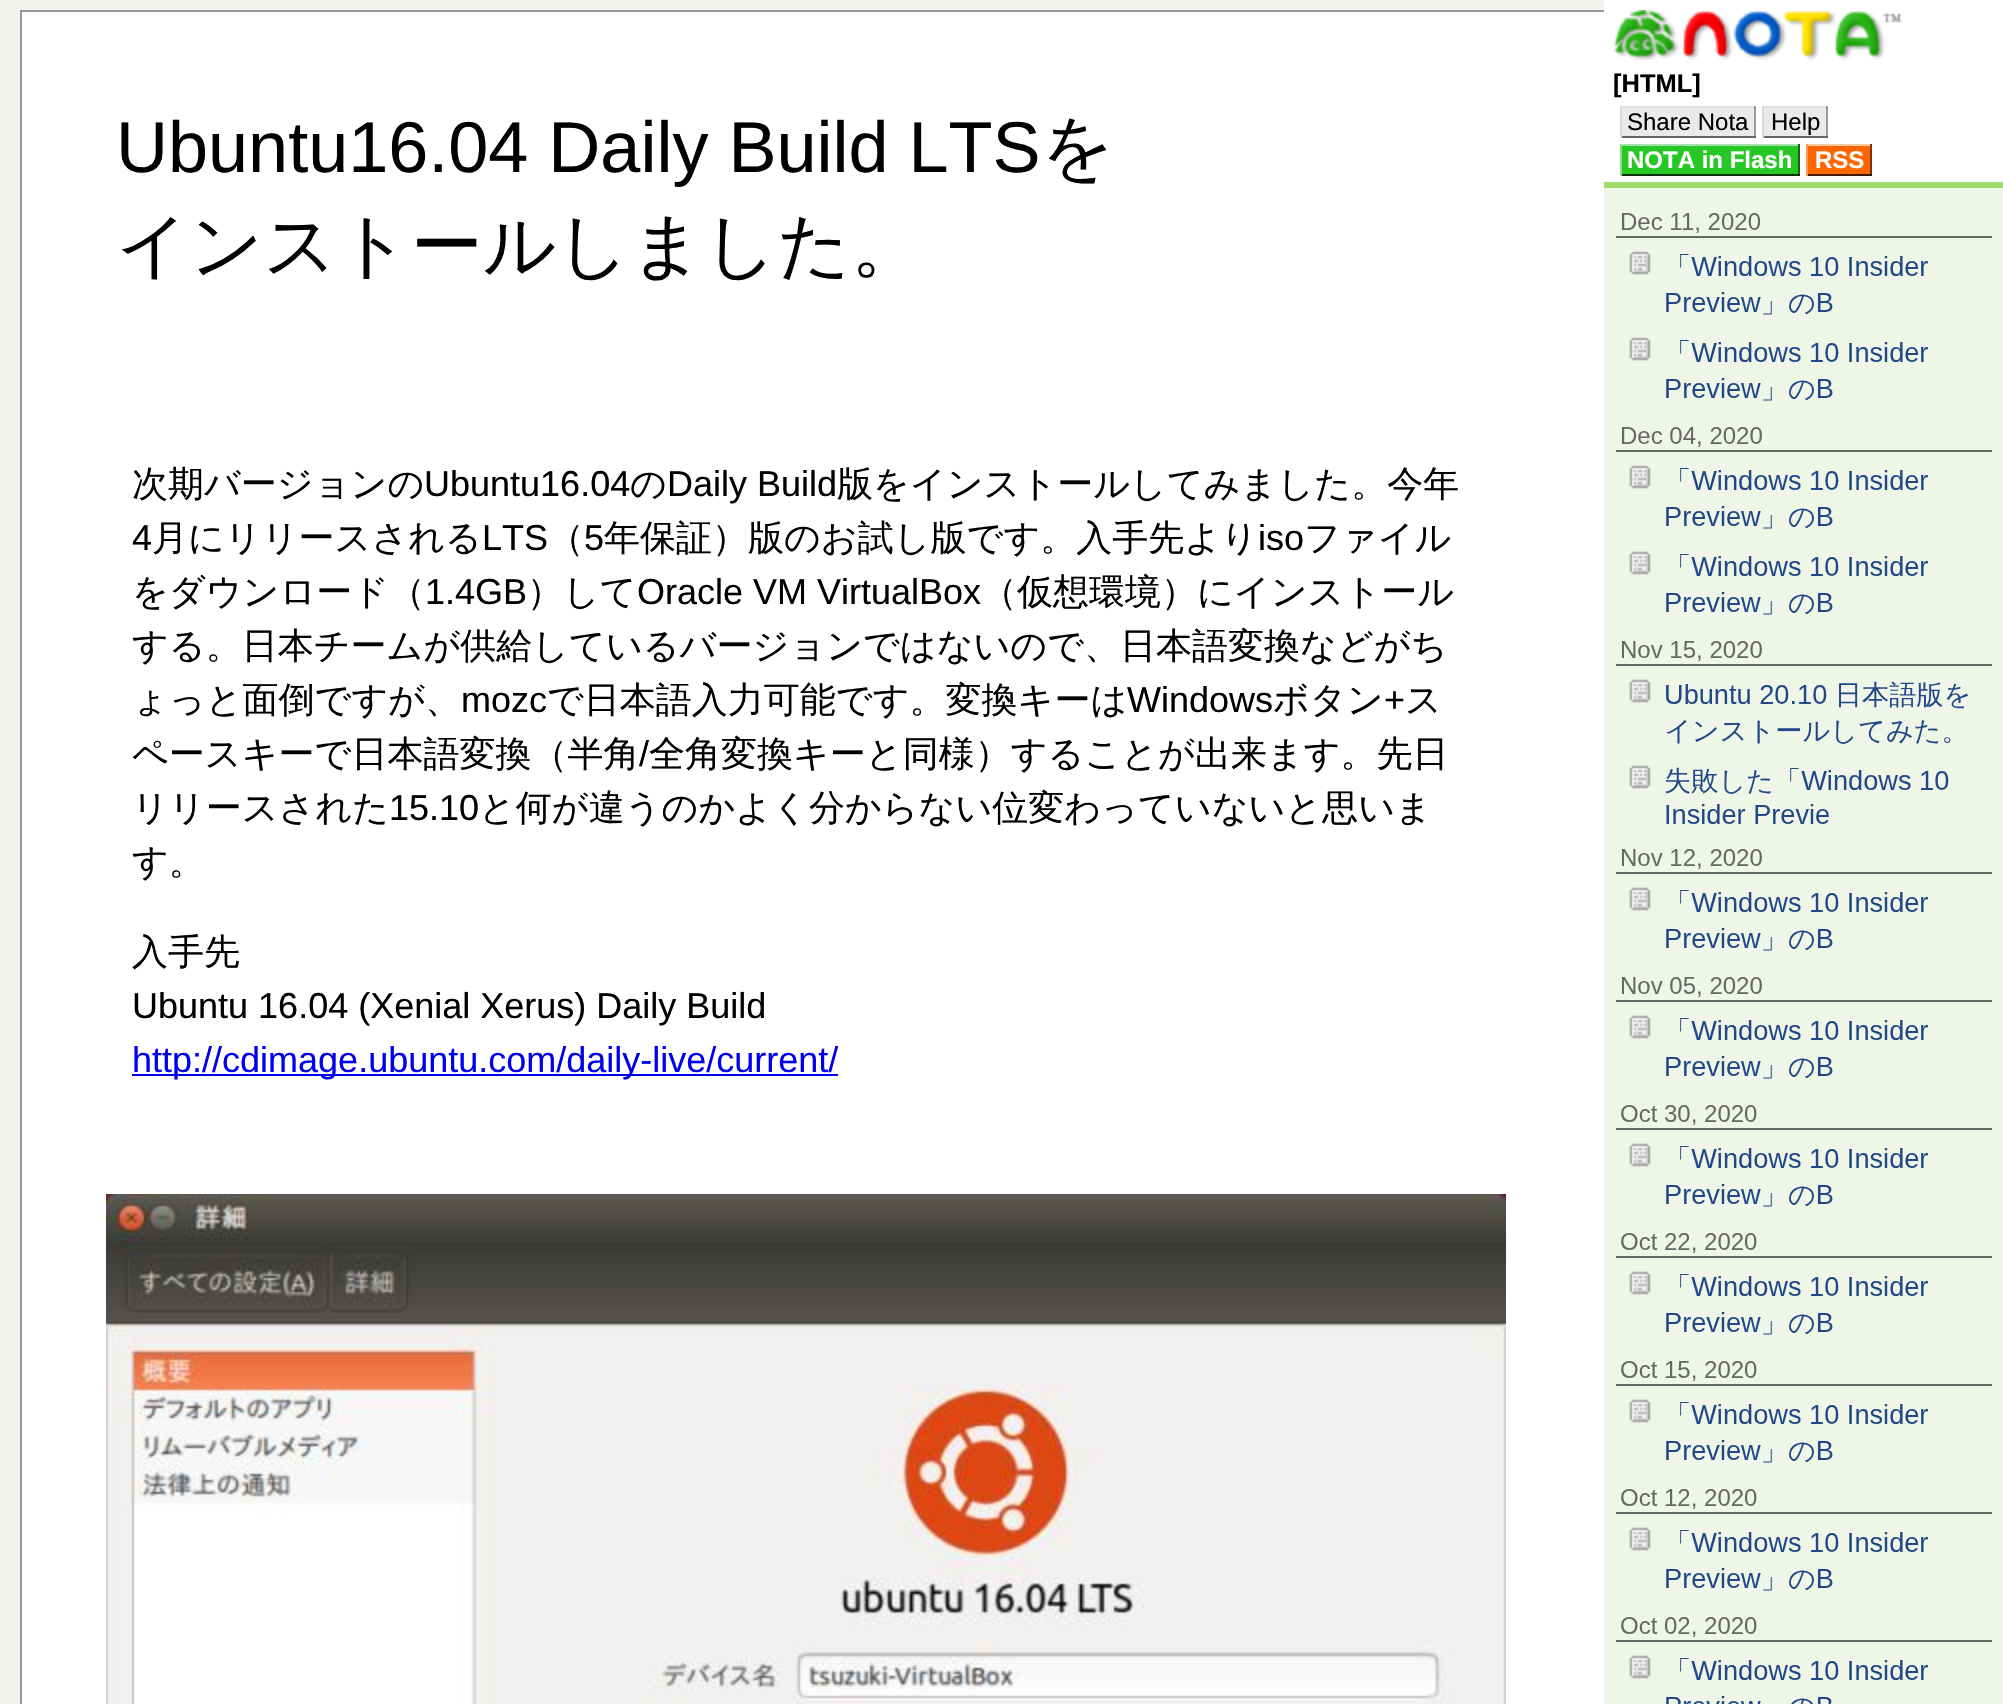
#include "include/core/SkBlurTypes.h"
#include "include/core/SkCanvas.h"
#include "include/core/SkData.h"
#include "include/core/SkFont.h"
#include "include/core/SkFontMgr.h"
#include "include/core/SkImage.h"
#include "include/core/SkMaskFilter.h"
#include "include/core/SkPaint.h"
#include "include/core/SkPathBuilder.h"
#include "include/core/SkTextBlob.h"
#include "include/effects/SkDashPathEffect.h"
#include "include/effects/SkGradientShader.h"
#include "include/utils/SkParsePath.h"

extern sk_sp<SkFontMgr> fontMgr;

void draw(SkCanvas* canvas) {
  SkPaint p;
  p.setAntiAlias(true);
  canvas->clear(SK_ColorWHITE);
  p.setColor(SkColorSetRGB(242, 242, 238));
  canvas->drawRect(SkRect::MakeLTRB(0, 0, 1604, 1704), p);
  p.setColor(SK_ColorWHITE);
  canvas->drawRect(SkRect::MakeLTRB(22, 12, 1604, 1704), p);
  p.setColor(SkColorSetRGB(153, 153, 153));
  canvas->drawRect(SkRect::MakeLTRB(20, 10, 1604, 12), p);
  canvas->drawRect(SkRect::MakeLTRB(20, 10, 22, 1704), p);
  p.setColor(SkColorSetRGB(0, 0, 238));
  canvas->drawRect(SkRect::MakeLTRB(132, 1074, 838, 1076), p);
  canvas->drawImageRect(SkImages::DeferredFromEncodedData(SkData::MakeFromFileName("images/1.png")), SkRect::MakeLTRB(106, 1194, 1506, 1704), SkSamplingOptions());
  canvas->drawImageRect(SkImages::DeferredFromEncodedData(SkData::MakeFromFileName("images/2.png")), SkRect::MakeLTRB(1614, 10, 1903, 60), SkSamplingOptions());
  p.setColor(SkColorSetRGB(234, 234, 234));
  canvas->drawRect(SkRect::MakeLTRB(1622, 108, 1754, 136), p);
  p.setColor(SkColorSetRGB(225, 225, 225));
  canvas->drawRect(SkRect::MakeLTRB(1620, 106, 1756, 108), p);
  p.setColor(SkColorSetRGB(153, 153, 153));
  canvas->drawRect(SkRect::MakeLTRB(1754, 106, 1756, 138), p);
  p.setColor(SkColorSetRGB(102, 102, 102));
  canvas->drawRect(SkRect::MakeLTRB(1620, 136, 1756, 138), p);
  p.setColor(SkColorSetRGB(217, 217, 217));
  canvas->drawRect(SkRect::MakeLTRB(1620, 106, 1622, 138), p);
  p.setColor(SkColorSetRGB(234, 234, 234));
  canvas->drawRect(SkRect::MakeLTRB(1764, 108, 1826, 136), p);
  p.setColor(SkColorSetRGB(225, 225, 225));
  canvas->drawRect(SkRect::MakeLTRB(1762, 106, 1828, 108), p);
  p.setColor(SkColorSetRGB(153, 153, 153));
  canvas->drawRect(SkRect::MakeLTRB(1826, 106, 1828, 138), p);
  p.setColor(SkColorSetRGB(102, 102, 102));
  canvas->drawRect(SkRect::MakeLTRB(1762, 136, 1828, 138), p);
  p.setColor(SkColorSetRGB(217, 217, 217));
  canvas->drawRect(SkRect::MakeLTRB(1762, 106, 1764, 138), p);
  p.setColor(SkColorSetRGB(39, 200, 37));
  canvas->drawRect(SkRect::MakeLTRB(1622, 146, 1798, 174), p);
  p.setColor(SkColorSetRGB(167, 224, 175));
  canvas->drawRect(SkRect::MakeLTRB(1620, 144, 1800, 146), p);
  p.setColor(SkColorSetRGB(22, 99, 20));
  canvas->drawRect(SkRect::MakeLTRB(1798, 144, 1800, 176), p);
  p.setColor(SkColorSetRGB(11, 48, 10));
  canvas->drawRect(SkRect::MakeLTRB(1620, 174, 1800, 176), p);
  p.setColor(SkColorSetRGB(141, 222, 139));
  canvas->drawRect(SkRect::MakeLTRB(1620, 144, 1622, 176), p);
  p.setColor(SkColorSetRGB(255, 102, 0));
  canvas->drawRect(SkRect::MakeLTRB(1808, 146, 1870, 174), p);
  p.setColor(SkColorSetRGB(255, 200, 164));
  canvas->drawRect(SkRect::MakeLTRB(1806, 144, 1872, 146), p);
  p.setColor(SkColorSetRGB(125, 51, 2));
  canvas->drawRect(SkRect::MakeLTRB(1870, 144, 1872, 176), p);
  p.setColor(SkColorSetRGB(63, 26, 1));
  canvas->drawRect(SkRect::MakeLTRB(1806, 174, 1872, 176), p);
  p.setColor(SkColorSetRGB(255, 154, 87));
  canvas->drawRect(SkRect::MakeLTRB(1806, 144, 1808, 176), p);
  p.setColor(SkColorSetRGB(158, 221, 106));
  canvas->drawRect(SkRect::MakeLTRB(1604, 182, 2003, 188), p);
  canvas->drawImageRect(SkImages::DeferredFromEncodedData(SkData::MakeFromFileName("images/3.png")), SkRect::MakeLTRB(1604, 188, 2003, 1704), SkSamplingOptions());
  SkFont font1(fontMgr->matchFamilyStyle("Liberation Sans", SkFontStyle::Normal()), 72);
  font1.setSubpixel(true);
  p.setColor(SK_ColorBLACK);
  canvas->drawString("Ubuntu16.04 Daily Build LTS", 116, 172, font1, p);
  SkFont font2(fontMgr->matchFamilyStyle("WenQuanYi Zen Hei", SkFontStyle(500, SkFontStyle::kNormal_Width, SkFontStyle::kUpright_Slant)), 72);
  font2.setSubpixel(true);
  canvas->drawString("を", 1041, 172, font2, p);
  canvas->drawString("インストールしました。", 116, 270, font2, p);
  SkFont font3(fontMgr->matchFamilyStyle("WenQuanYi Zen Hei", SkFontStyle(500, SkFontStyle::kNormal_Width, SkFontStyle::kUpright_Slant)), 36);
  font3.setSubpixel(true);
  canvas->drawString("次期バージョンの", 132, 496, font3, p);
  SkFont font4(fontMgr->matchFamilyStyle("Liberation Sans", SkFontStyle::Normal()), 36);
  font4.setSubpixel(true);
  canvas->drawString("Ubuntu16.04", 424, 496, font4, p);
  canvas->drawString("の", 630, 496, font3, p);
  canvas->drawString("Daily Build", 667, 496, font4, p);
  canvas->drawString("版をインストールしてみました。今年", 837, 496, font3, p);
  canvas->drawString("4", 132, 550, font4, p);
  canvas->drawString("月にリリースされる", 152, 550, font3, p);
  canvas->drawString("LTS", 482, 550, font4, p);
  canvas->drawString("（", 548, 550, font3, p);
  canvas->drawString("5", 584, 550, font4, p);
  canvas->drawString("年保証）版のお試し版です。入手先より", 604, 550, font3, p);
  canvas->drawString("iso", 1258, 550, font4, p);
  canvas->drawString("ファイル", 1304, 550, font3, p);
  canvas->drawString("をダウンロード（", 132, 604, font3, p);
  canvas->drawString("1.4GB", 425, 604, font4, p);
  canvas->drawString("）して", 527, 604, font3, p);
  canvas->drawString("Oracle VM VirtualBox", 637, 604, font4, p);
  canvas->drawString("（仮想環境）にインストール", 981, 604, font3, p);
  canvas->drawString("する。日本チームが供給しているバージョンではないので、日本語変換などがち", 132, 658, font3, p);
  canvas->drawString("ょっと面倒ですが、", 132, 712, font3, p);
  canvas->drawString("mozc", 461, 712, font4, p);
  canvas->drawString("で日本語入力可能です。変換キーは", 547, 712, font3, p);
  canvas->drawString("Windows", 1127, 712, font4, p);
  canvas->drawString("ボタン", 1273, 712, font3, p);
  canvas->drawString("+", 1384, 712, font4, p);
  canvas->drawString("ス", 1405, 712, font3, p);
  canvas->drawString("ペースキーで日本語変換（半角", 132, 766, font3, p);
  canvas->drawString("/", 639, 766, font4, p);
  canvas->drawString("全角変換キーと同様）することが出来ます。先日", 649, 766, font3, p);
  canvas->drawString("リリースされた", 132, 820, font3, p);
  canvas->drawString("15.10", 389, 820, font4, p);
  canvas->drawString("と何が違うのかよく分からない位変わっていないと思いま", 479, 820, font3, p);
  canvas->drawString("す。", 132, 874, font3, p);
  canvas->drawString("入手先", 132, 964, font3, p);
  canvas->drawString("Ubuntu 16.04 (Xenial Xerus) Daily Build", 132, 1018, font4, p);
  p.setColor(SkColorSetRGB(0, 0, 238));
  canvas->drawString("http://cdimage.ubuntu.com/daily-live/current/", 132, 1072, font4, p);
  SkFont font5(fontMgr->matchFamilyStyle("Liberation Sans", SkFontStyle::Bold()), 25.5f);
  font5.setSubpixel(true);
  p.setColor(SK_ColorBLACK);
  canvas->drawString("[HTML]", 1613, 92, font5, p);
  SkFont font6(fontMgr->matchFamilyStyle("Liberation Sans", SkFontStyle::Normal()), 24);
  font6.setSubpixel(true);
  canvas->drawString("Share Nota", 1627, 130, font6, p);
  canvas->drawString("Help", 1771, 130, font6, p);
  SkFont font7(fontMgr->matchFamilyStyle("Liberation Sans", SkFontStyle::Bold()), 24);
  font7.setSubpixel(true);
  p.setColor(SK_ColorWHITE);
  canvas->drawString("NOTA in Flash", 1627, 168, font7, p);
  canvas->drawString("RSS", 1815, 168, font7, p);
}
